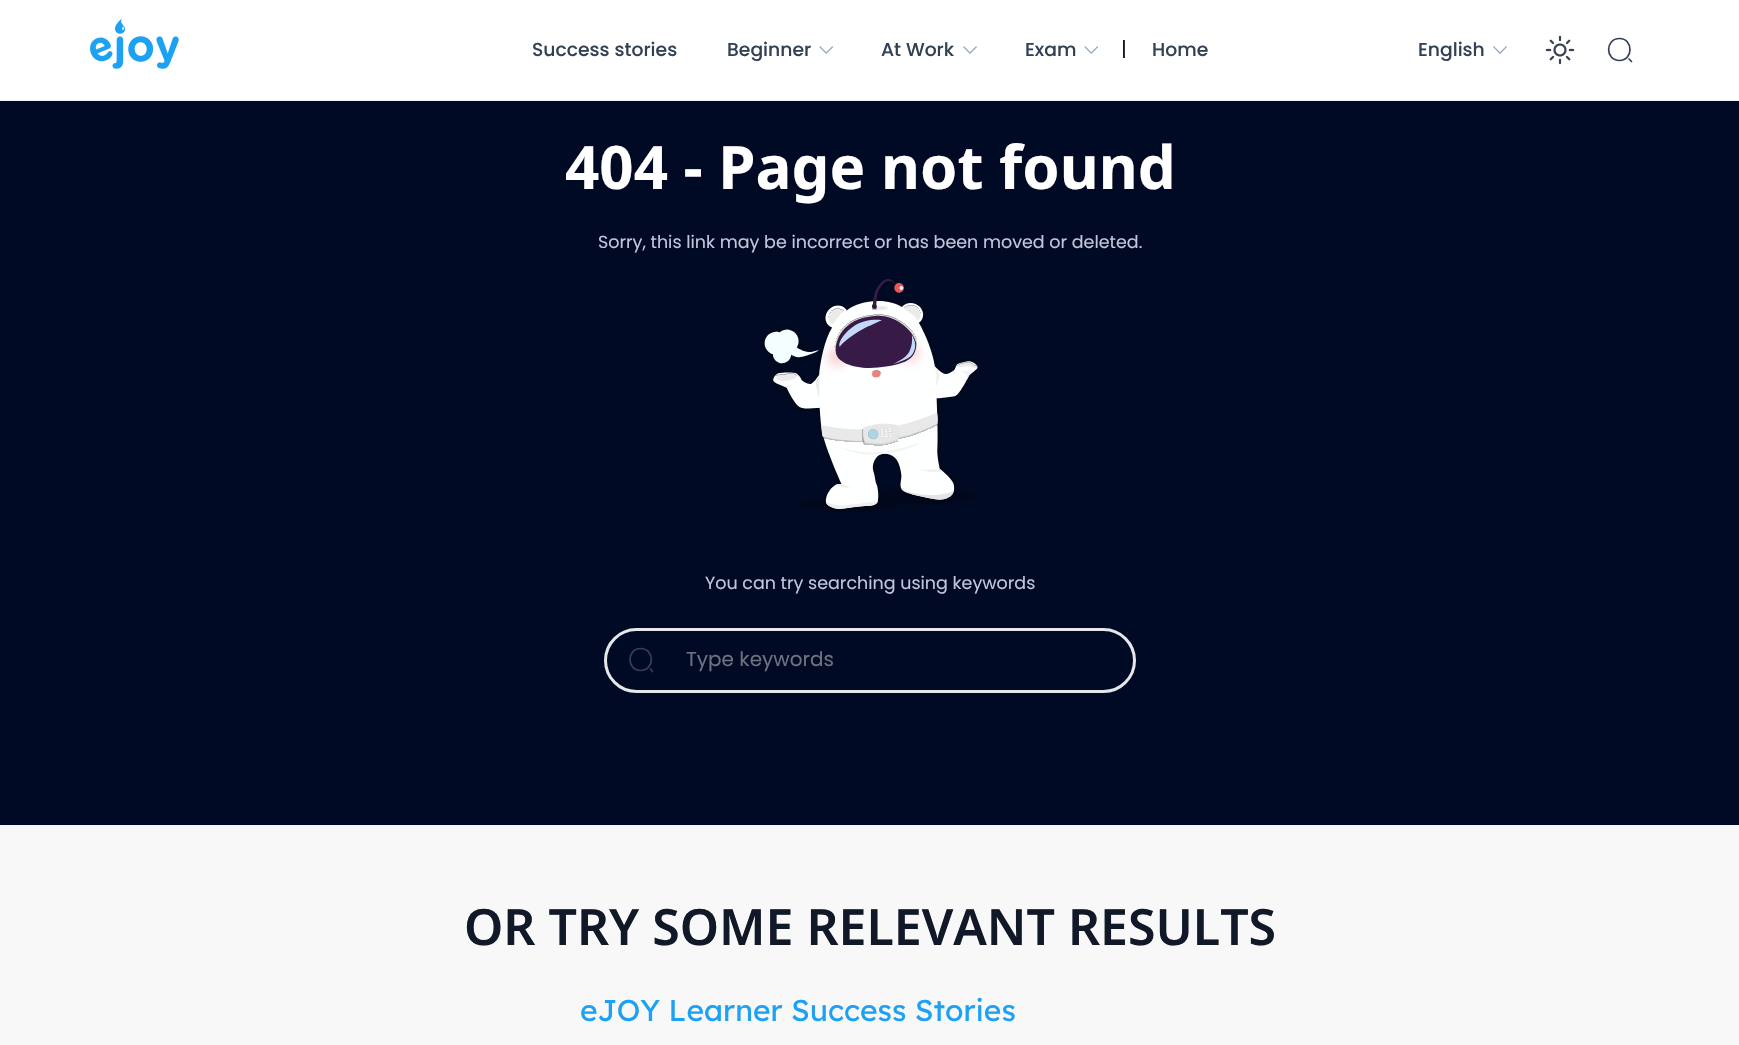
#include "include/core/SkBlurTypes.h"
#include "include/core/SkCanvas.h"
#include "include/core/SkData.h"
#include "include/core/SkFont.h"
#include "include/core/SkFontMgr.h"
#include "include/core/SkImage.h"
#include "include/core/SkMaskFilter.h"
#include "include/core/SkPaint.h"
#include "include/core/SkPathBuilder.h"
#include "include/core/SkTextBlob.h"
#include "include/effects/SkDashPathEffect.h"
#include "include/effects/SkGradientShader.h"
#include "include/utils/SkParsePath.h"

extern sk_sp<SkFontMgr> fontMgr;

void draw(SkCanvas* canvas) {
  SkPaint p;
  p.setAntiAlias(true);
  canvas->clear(SkColorSetRGB(248, 248, 248));
  p.setColor(SK_ColorWHITE);
  canvas->drawRect(SkRect::MakeLTRB(0, 0, 1739, 100), p);
  p.setColor(SkColorSetRGB(241, 245, 249));
  canvas->drawRect(SkRect::MakeLTRB(0, 100, 1739, 101), p);
  canvas->drawImageRect(SkImages::DeferredFromEncodedData(SkData::MakeFromFileName("images/1.png")), SkRect::MakeLTRB(90, 18, 179, 69), SkSamplingOptions());
  canvas->drawImageRect(SkImages::DeferredFromEncodedData(SkData::MakeFromFileName("images/2.png")), SkRect::MakeLTRB(819, 46, 834, 54), SkSamplingOptions());
  canvas->drawImageRect(SkImages::DeferredFromEncodedData(SkData::MakeFromFileName("images/3.png")), SkRect::MakeLTRB(963, 46, 977, 54), SkSamplingOptions());
  canvas->drawImageRect(SkImages::DeferredFromEncodedData(SkData::MakeFromFileName("images/2.png")), SkRect::MakeLTRB(1084, 46, 1099, 54), SkSamplingOptions());
  canvas->drawImageRect(SkImages::DeferredFromEncodedData(SkData::MakeFromFileName("images/3.png")), SkRect::MakeLTRB(1493, 46, 1507, 54), SkSamplingOptions());
  canvas->drawImageRect(SkImages::DeferredFromEncodedData(SkData::MakeFromFileName("images/4.png")), SkRect::MakeLTRB(1545, 35, 1575, 65), SkSamplingOptions());
  p.setStyle(SkPaint::kStroke_Style);
  p.setStrokeWidth(1.7f);
  p.setStrokeCap(SkPaint::kRound_Cap);
  p.setStrokeJoin(SkPaint::kRound_Join);
  p.setColor(SkColorSetRGB(51, 65, 85));
  canvas->drawPath(SkPathBuilder().moveTo(1619.5f, 60.5f).cubicTo(1633.5f, 60.5f, 1633.5f, 38.5f, 1619.5f, 38.5f).cubicTo(1605, 38.5f, 1605, 60.5f, 1619.5f, 60.5f).close().moveTo(1631.5f, 61.5f).lineTo(1629, 59).detach(), p);
  p.setStyle(SkPaint::kFill_Style);
  p.setColor(SkColorSetRGB(1, 10, 36));
  canvas->drawRect(SkRect::MakeLTRB(0, 101, 1739, 825), p);
  canvas->drawImageRect(SkImages::DeferredFromEncodedData(SkData::MakeFromFileName("images/5.png")), SkRect::MakeLTRB(762, 279, 979, 513), SkSamplingOptions());
  p.setStyle(SkPaint::kStroke_Style);
  p.setStrokeWidth(3);
  p.setStrokeCap(SkPaint::kButt_Cap);
  p.setStrokeJoin(SkPaint::kMiter_Join);
  p.setColor(SkColorSetRGB(229, 231, 235));
  canvas->drawRoundRect(SkRect::MakeLTRB(605.5f, 629.5f, 1134.5f, 691.5f), 31, 31, p);
  p.setStrokeWidth(1.7f);
  p.setStrokeCap(SkPaint::kRound_Cap);
  p.setStrokeJoin(SkPaint::kRound_Join);
  p.setColor(SkColorSetRGB(51, 65, 85));
  canvas->drawPath(SkPathBuilder().moveTo(640.5f, 670.5f).cubicTo(655, 670.5f, 655, 648.5f, 640.5f, 648.5f).cubicTo(626.5f, 648.5f, 626.5f, 670.5f, 640.5f, 670.5f).close().moveTo(652.5f, 671.5f).lineTo(650.5f, 669).detach(), p);
  SkFont font1(fontMgr->matchFamilyStyle("Poppins", SkFontStyle(500, SkFontStyle::kNormal_Width, SkFontStyle::kUpright_Slant)), 18.75f);
  font1.setSubpixel(true);
  p.setStyle(SkPaint::kFill_Style);
  canvas->drawString("Success stories", 532, 56, font1, p);
  canvas->drawString("Beginner", 727, 56, font1, p);
  canvas->drawString("At Work", 881, 56, font1, p);
  canvas->drawString("Exam", 1025, 56, font1, p);
  SkFont font2(fontMgr->matchFamilyStyle("Poppins", SkFontStyle::Normal()), 20);
  font2.setSubpixel(true);
  p.setColor(SkColorSetRGB(17, 24, 39));
  canvas->drawString("|", 1121, 56, font2, p);
  p.setColor(SkColorSetRGB(51, 65, 85));
  canvas->drawString("Home", 1152, 56, font1, p);
  canvas->drawString("English", 1418, 56, font1, p);
  SkFont font3(fontMgr->matchFamilyStyle("Noto Sans", SkFontStyle::Bold()), 60);
  font3.setSubpixel(true);
  p.setColor(SK_ColorWHITE);
  canvas->drawString("404 - Page not found", 565, 189, font3, p);
  SkFont font4(fontMgr->matchFamilyStyle("Poppins", SkFontStyle::Normal()), 17.5f);
  font4.setSubpixel(true);
  p.setColor(SkColorSetRGB(194, 198, 220));
  canvas->drawString("Sorry, this link may be incorrect or has been moved or deleted.", 598, 248, font4, p);
  canvas->drawString("You can try searching using keywords", 705, 589, font4, p);
  p.setColor(SkColorSetRGB(107, 114, 128));
  canvas->drawString("Type keywords", 686, 666, font2, p);
  SkFont font5(fontMgr->matchFamilyStyle("Noto Sans", SkFontStyle(600, SkFontStyle::kNormal_Width, SkFontStyle::kUpright_Slant)), 50);
  font5.setSubpixel(true);
  p.setColor(SkColorSetRGB(17, 24, 39));
  canvas->drawString("OR TRY SOME RELEVANT RESULTS", 464, 945, font5, p);
  SkFont font6(fontMgr->matchFamilyStyle("Lexend", SkFontStyle::Normal()), 30);
  font6.setSubpixel(true);
  p.setColor(SkColorSetRGB(29, 161, 242));
  canvas->drawString("eJOY Learner Success Stories", 580, 1021, font6, p);
}
